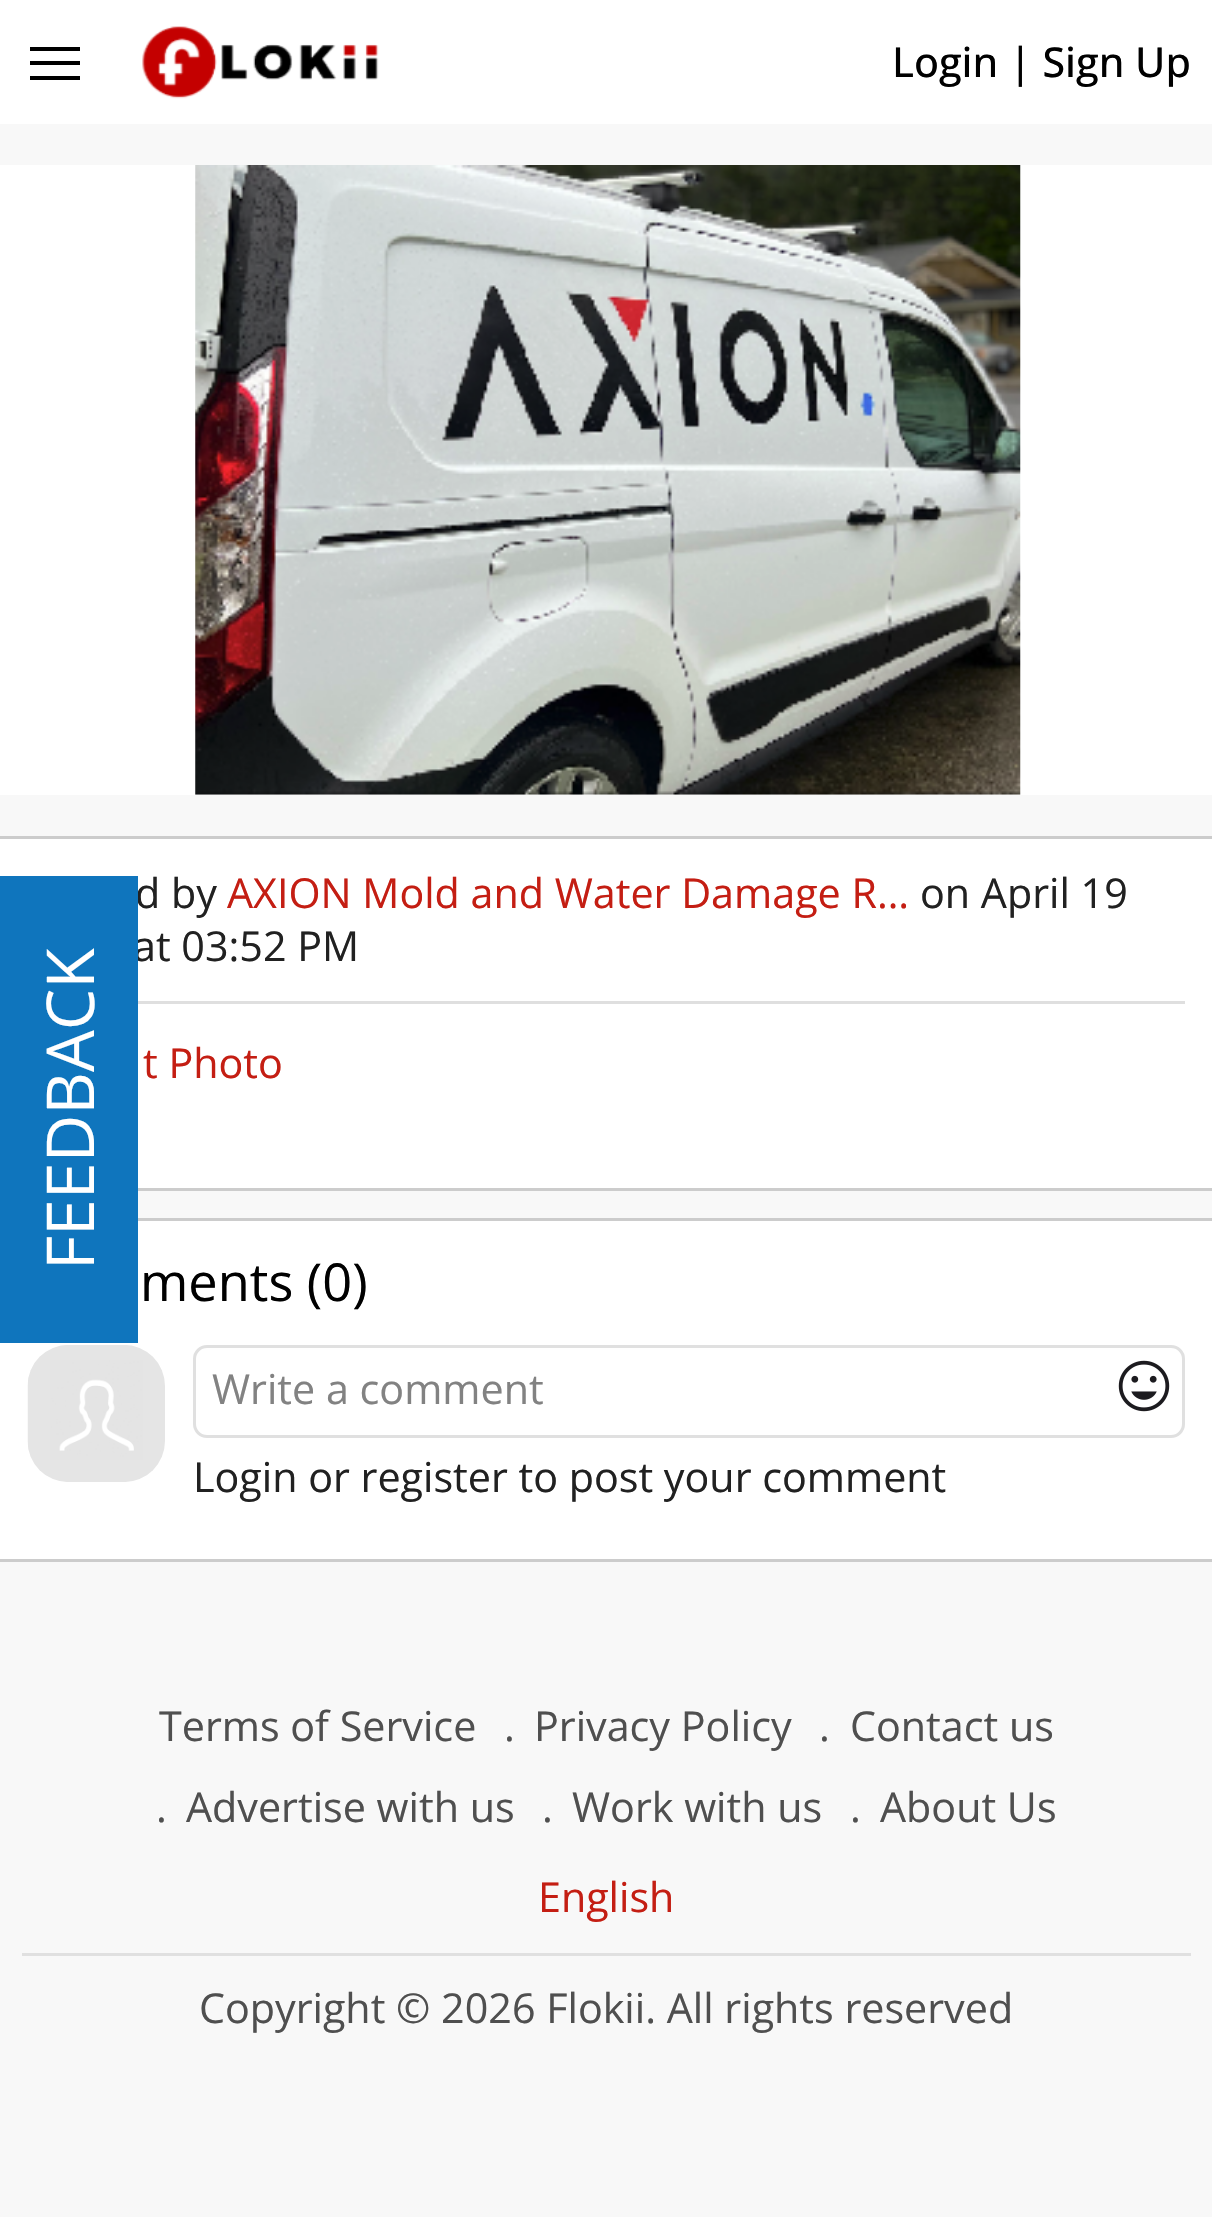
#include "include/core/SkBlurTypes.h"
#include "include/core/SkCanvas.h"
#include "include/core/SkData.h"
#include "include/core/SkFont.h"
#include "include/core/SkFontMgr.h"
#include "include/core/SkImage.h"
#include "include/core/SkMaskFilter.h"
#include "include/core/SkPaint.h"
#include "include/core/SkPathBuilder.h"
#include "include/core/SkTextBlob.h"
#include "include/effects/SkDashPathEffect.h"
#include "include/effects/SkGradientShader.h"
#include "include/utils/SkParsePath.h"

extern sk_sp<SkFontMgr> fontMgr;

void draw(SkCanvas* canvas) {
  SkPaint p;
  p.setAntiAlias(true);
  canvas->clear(SkColorSetRGB(248, 248, 248));
  p.setColor(SK_ColorWHITE);
  canvas->drawRect(SkRect::MakeLTRB(0, 0, 1212, 124), p);
  p.setColor(SK_ColorBLACK);
  canvas->drawPath(SkPathBuilder().moveTo(30, 80).lineTo(30, 76).lineTo(80, 76).lineTo(80, 80).close().moveTo(30, 65).lineTo(30, 61).lineTo(80, 61).lineTo(80, 65).close().moveTo(30, 51).lineTo(30, 47).lineTo(80, 47).lineTo(80, 51).close().detach(), p);
  canvas->drawImageRect(SkImages::DeferredFromEncodedData(SkData::MakeFromFileName("images/1.png")), SkRect::MakeLTRB(142, 26, 379, 99), SkSamplingOptions());
  p.setColor(SK_ColorWHITE);
  canvas->drawRect(SkRect::MakeLTRB(0, 165, 1212, 795), p);
  canvas->drawImageRect(SkImages::DeferredFromEncodedData(SkData::MakeFromFileName("images/2.png")), SkRect::MakeLTRB(195, 165, 1021, 795), SkSamplingOptions());
  p.setColor(SkColorSetRGB(204, 204, 204));
  canvas->drawRect(SkRect::MakeLTRB(0, 836, 1212, 839), p);
  canvas->drawRect(SkRect::MakeLTRB(138, 1188, 1212, 1191), p);
  p.setColor(SK_ColorWHITE);
  canvas->drawRect(SkRect::MakeLTRB(0, 839, 1212, 1188), p);
  p.setColor(SkColorSetRGB(223, 223, 223));
  canvas->drawRect(SkRect::MakeLTRB(138, 1001, 1185, 1004), p);
  p.setColor(SkColorSetRGB(204, 204, 204));
  canvas->drawRect(SkRect::MakeLTRB(138, 1218, 1212, 1221), p);
  canvas->drawRect(SkRect::MakeLTRB(0, 1559, 1212, 1562), p);
  p.setColor(SK_ColorWHITE);
  canvas->drawRect(SkRect::MakeLTRB(0, 1221, 1212, 1559), p);
  canvas->drawImageRect(SkImages::DeferredFromEncodedData(SkData::MakeFromFileName("images/3.png")), SkRect::MakeLTRB(27, 1345, 165, 1482), SkSamplingOptions());
  p.setStyle(SkPaint::kStroke_Style);
  p.setStrokeWidth(3);
  p.setColor(SkColorSetRGB(224, 224, 224));
  canvas->drawRoundRect(SkRect::MakeLTRB(194.5f, 1346.5f, 1183.5f, 1436.5f), 12.5f, 12.5f, p);
  canvas->drawImageRect(SkImages::DeferredFromEncodedData(SkData::MakeFromFileName("images/4.png")), SkRect::MakeLTRB(1118, 1360, 1170, 1412), SkSamplingOptions());
  p.setStyle(SkPaint::kFill_Style);
  canvas->drawRect(SkRect::MakeLTRB(22, 1953, 1191, 1956), p);
  SkFont font1(fontMgr->matchFamilyStyle("Open Sans", SkFontStyle(500, SkFontStyle::kNormal_Width, SkFontStyle::kUpright_Slant)), 41.25f);
  font1.setSubpixel(true);
  p.setColor(SK_ColorBLACK);
  canvas->drawString("Login | Sign Up", 892, 77, font1, p);
  SkFont font2(fontMgr->matchFamilyStyle("Open Sans", SkFontStyle::Normal()), 41.25f);
  font2.setSubpixel(true);
  p.setColor(SkColorSetRGB(33, 33, 33));
  canvas->drawString("d by", 135, 908, font2, p);
  p.setColor(SkColorSetRGB(196, 30, 19));
  canvas->drawString("AXION Mold and Water Damage R…", 227, 908, font2, p);
  p.setColor(SkColorSetRGB(33, 33, 33));
  canvas->drawString("on April 19", 920, 908, font2, p);
  canvas->drawString("at 03:52 PM", 133, 961, font2, p);
  p.setColor(SkColorSetRGB(15, 117, 189));
  canvas->drawRect(SkRect::MakeLTRB(0, 876, 138, 1343), p);
  SkFont font3(fontMgr->matchFamilyStyle("Open Sans", SkFontStyle::Normal()), 66);
  font3.setSubpixel(true);
  p.setColor(SK_ColorWHITE);
  canvas->save();
  canvas->rotate(-90, 94, 1270);
  canvas->drawString("FEEDBACK", 94, 1270, font3, p);
  canvas->restore();
  p.setColor(SkColorSetRGB(196, 30, 19));
  canvas->drawString("t Photo", 143, 1078, font2, p);
  SkFont font4(fontMgr->matchFamilyStyle("Open Sans", SkFontStyle::Normal()), 52.25f);
  font4.setSubpixel(true);
  p.setColor(SK_ColorBLACK);
  canvas->drawString("ments (0)", 140, 1301, font4, p);
  p.setColor(SkColorSetRGB(130, 130, 130));
  canvas->drawString("Write a comment", 212, 1404, font2, p);
  p.setColor(SkColorSetRGB(33, 33, 33));
  canvas->drawString("Login or register to post your comment", 193, 1492, font2, p);
  p.setColor(SkColorSetRGB(79, 79, 79));
  canvas->drawString("Terms of Service", 159, 1741, font2, p);
  canvas->drawString(".", 504, 1741, font2, p);
  canvas->drawString("Privacy Policy", 534, 1741, font2, p);
  canvas->drawString(".", 819, 1741, font2, p);
  canvas->drawString("Contact us", 850, 1741, font2, p);
  canvas->drawString(".", 156, 1822, font2, p);
  canvas->drawString("Advertise with us", 186, 1822, font2, p);
  canvas->drawString(".", 542, 1822, font2, p);
  canvas->drawString("Work with us", 572, 1822, font2, p);
  canvas->drawString(".", 850, 1822, font2, p);
  canvas->drawString("About Us", 880, 1822, font2, p);
  p.setColor(SkColorSetRGB(196, 30, 19));
  canvas->drawString("English", 538, 1912, font2, p);
  p.setColor(SkColorSetRGB(79, 79, 79));
  canvas->drawString("Copyright © 2026 Flokii. All rights reserved", 199, 2023, font2, p);
}
